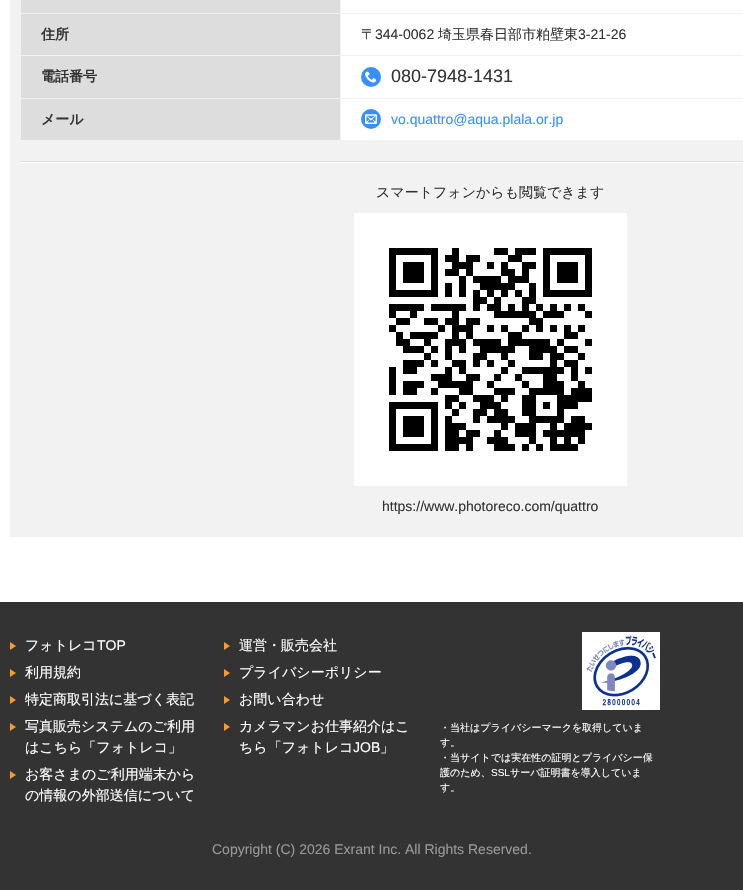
#include "include/core/SkBlurTypes.h"
#include "include/core/SkCanvas.h"
#include "include/core/SkData.h"
#include "include/core/SkFont.h"
#include "include/core/SkFontMgr.h"
#include "include/core/SkImage.h"
#include "include/core/SkMaskFilter.h"
#include "include/core/SkPaint.h"
#include "include/core/SkPathBuilder.h"
#include "include/core/SkTextBlob.h"
#include "include/effects/SkDashPathEffect.h"
#include "include/effects/SkGradientShader.h"
#include "include/utils/SkParsePath.h"

extern sk_sp<SkFontMgr> fontMgr;

void draw(SkCanvas* canvas) {
  SkPaint p;
  p.setAntiAlias(true);
  canvas->clear(SK_ColorWHITE);
  p.setColor(SkColorSetRGB(242, 242, 242));
  canvas->drawRect(SkRect::MakeLTRB(10, 0, 743, 537), p);
  p.setColor(SkColorSetRGB(221, 221, 221));
  canvas->drawRect(SkRect::MakeLTRB(21, 0, 340, 13), p);
  p.setColor(SK_ColorWHITE);
  canvas->drawRect(SkRect::MakeLTRB(341, 0, 743, 13), p);
  p.setColor(SkColorSetRGB(221, 221, 221));
  canvas->drawRect(SkRect::MakeLTRB(21, 14, 340, 55), p);
  p.setColor(SK_ColorWHITE);
  canvas->drawRect(SkRect::MakeLTRB(341, 14, 743, 55), p);
  p.setColor(SkColorSetRGB(221, 221, 221));
  canvas->drawRect(SkRect::MakeLTRB(21, 56, 340, 98), p);
  p.setColor(SK_ColorWHITE);
  canvas->drawRect(SkRect::MakeLTRB(341, 56, 743, 98), p);
  p.setColor(SkColorSetRGB(56, 143, 255));
  canvas->drawCircle(371, 77, 10, p);
  canvas->drawImageRect(SkImages::DeferredFromEncodedData(SkData::MakeFromFileName("images/1.png")), SkRect::MakeLTRB(365, 71, 377, 83), SkSamplingOptions());
  p.setColor(SkColorSetRGB(221, 221, 221));
  canvas->drawRect(SkRect::MakeLTRB(21, 99, 340, 140), p);
  p.setColor(SK_ColorWHITE);
  canvas->drawRect(SkRect::MakeLTRB(341, 99, 743, 140), p);
  p.setColor(SkColorSetRGB(56, 143, 255));
  canvas->drawCircle(371, 119, 10, p);
  canvas->drawImageRect(SkImages::DeferredFromEncodedData(SkData::MakeFromFileName("images/2.png")), SkRect::MakeLTRB(365, 114, 377, 124), SkSamplingOptions());
  p.setColor(SK_ColorWHITE);
  canvas->drawRect(SkRect::MakeLTRB(20, 162, 743, 163), p);
  p.setColor(SkColorSetRGB(221, 221, 221));
  canvas->drawRect(SkRect::MakeLTRB(20, 161, 743, 162), p);
  canvas->drawImageRect(SkImages::DeferredFromEncodedData(SkData::MakeFromFileName("images/3.png")), SkRect::MakeLTRB(354, 213, 627, 486), SkSamplingOptions());
  p.setColor(SkColorSetRGB(51, 51, 51));
  canvas->drawRect(SkRect::MakeLTRB(0, 602, 743, 890), p);
  p.setColor(SkColorSetRGB(255, 153, 38));
  canvas->drawPath(SkPathBuilder().moveTo(10, 650).lineTo(10, 642).lineTo(16, 646).close().detach(), p);
  canvas->drawPath(SkPathBuilder().moveTo(224, 650).lineTo(224, 642).lineTo(230, 646).close().detach(), p);
  canvas->drawPath(SkPathBuilder().moveTo(10, 677).lineTo(10, 669).lineTo(16, 673).close().detach(), p);
  canvas->drawPath(SkPathBuilder().moveTo(224, 677).lineTo(224, 669).lineTo(230, 673).close().detach(), p);
  canvas->drawPath(SkPathBuilder().moveTo(10, 704).lineTo(10, 696).lineTo(16, 700).close().detach(), p);
  canvas->drawPath(SkPathBuilder().moveTo(224, 704).lineTo(224, 696).lineTo(230, 700).close().detach(), p);
  canvas->drawPath(SkPathBuilder().moveTo(10, 731).lineTo(10, 723).lineTo(16, 727).close().detach(), p);
  canvas->drawPath(SkPathBuilder().moveTo(224, 731).lineTo(224, 723).lineTo(230, 727).close().detach(), p);
  canvas->drawPath(SkPathBuilder().moveTo(10, 779).lineTo(10, 771).lineTo(16, 775).close().detach(), p);
  p.setColor(SK_ColorWHITE);
  canvas->drawRect(SkRect::MakeLTRB(582, 632, 660, 710), p);
  canvas->drawImageRect(SkImages::DeferredFromEncodedData(SkData::MakeFromFileName("images/4.png")), SkRect::MakeLTRB(586, 635, 656, 706), SkSamplingOptions());
  SkFont font1(fontMgr->matchFamilyStyle("WenQuanYi Zen Hei", SkFontStyle::Bold()), 14);
  font1.setSubpixel(true);
  p.setColor(SkColorSetRGB(51, 51, 51));
  canvas->drawString("住所", 41, 39, font1, p);
  SkFont font2(fontMgr->matchFamilyStyle("WenQuanYi Zen Hei", SkFontStyle(500, SkFontStyle::kNormal_Width, SkFontStyle::kUpright_Slant)), 14);
  font2.setSubpixel(true);
  canvas->drawString("〒", 361, 39, font2, p);
  SkFont font3(fontMgr->matchFamilyStyle("Liberation Sans", SkFontStyle::Normal()), 14);
  font3.setSubpixel(true);
  canvas->drawString("344-0062", 375, 39, font3, p);
  canvas->drawString("埼玉県春日部市粕壁東", 438, 39, font2, p);
  canvas->drawString("3-21-26", 578, 39, font3, p);
  canvas->drawString("電話番号", 41, 81, font1, p);
  SkFont font4(fontMgr->matchFamilyStyle("Liberation Sans", SkFontStyle::Normal()), 18);
  font4.setSubpixel(true);
  canvas->drawString("080-7948-1431", 391, 82, font4, p);
  canvas->drawString("メール", 41, 124, font1, p);
  p.setColor(SkColorSetRGB(56, 143, 255));
  canvas->drawString("vo.quattro@aqua.plala.or.jp", 391, 124, font3, p);
  p.setColor(SkColorSetRGB(51, 51, 51));
  canvas->drawString("スマートフォンからも閲覧できます", 376, 197, font2, p);
  canvas->drawString("https://www.photoreco.com/quattro", 382, 511, font3, p);
  p.setColor(SK_ColorWHITE);
  canvas->drawString("フォトレコ", 25, 650, font2, p);
  canvas->drawString("TOP", 97, 650, font3, p);
  canvas->drawString("運営・販売会社", 239, 650, font2, p);
  canvas->drawString("利用規約", 25, 677, font2, p);
  canvas->drawString("プライバシーポリシー", 239, 677, font2, p);
  canvas->drawString("特定商取引法に基づく表記", 25, 704, font2, p);
  canvas->drawString("お問い合わせ", 239, 704, font2, p);
  canvas->drawString("写真販売システムのご利用", 25, 731, font2, p);
  canvas->drawString("はこちら「フォトレコ」", 25, 752, font2, p);
  canvas->drawString("カメラマンお仕事紹介はこ", 239, 731, font2, p);
  canvas->drawString("ちら「フォトレコ", 239, 752, font2, p);
  canvas->drawString("JOB", 353, 752, font3, p);
  canvas->drawString("」", 380, 752, font2, p);
  canvas->drawString("お客さまのご利用端末から", 25, 779, font2, p);
  canvas->drawString("の情報の外部送信について", 25, 800, font2, p);
  SkFont font5(fontMgr->matchFamilyStyle("WenQuanYi Zen Hei", SkFontStyle(500, SkFontStyle::kNormal_Width, SkFontStyle::kUpright_Slant)), 10);
  font5.setSubpixel(true);
  canvas->drawString("・当社はプライバシーマークを取得していま", 440, 731, font5, p);
  canvas->drawString("す。", 440, 746, font5, p);
  canvas->drawString("・当サイトでは実在性の証明とプライバシー保", 440, 761, font5, p);
  canvas->drawString("護のため、", 440, 776, font5, p);
  SkFont font6(fontMgr->matchFamilyStyle("Liberation Sans", SkFontStyle::Normal()), 10);
  font6.setSubpixel(true);
  canvas->drawString("SSL", 491, 776, font6, p);
  canvas->drawString("サーバ証明書を導入していま", 510, 776, font5, p);
  canvas->drawString("す。", 440, 791, font5, p);
  p.setColor(SkColorSetRGB(153, 153, 153));
  canvas->drawString("Copyright (C) 2026 Exrant Inc. All Rights Reserved.", 212, 854, font3, p);
}
